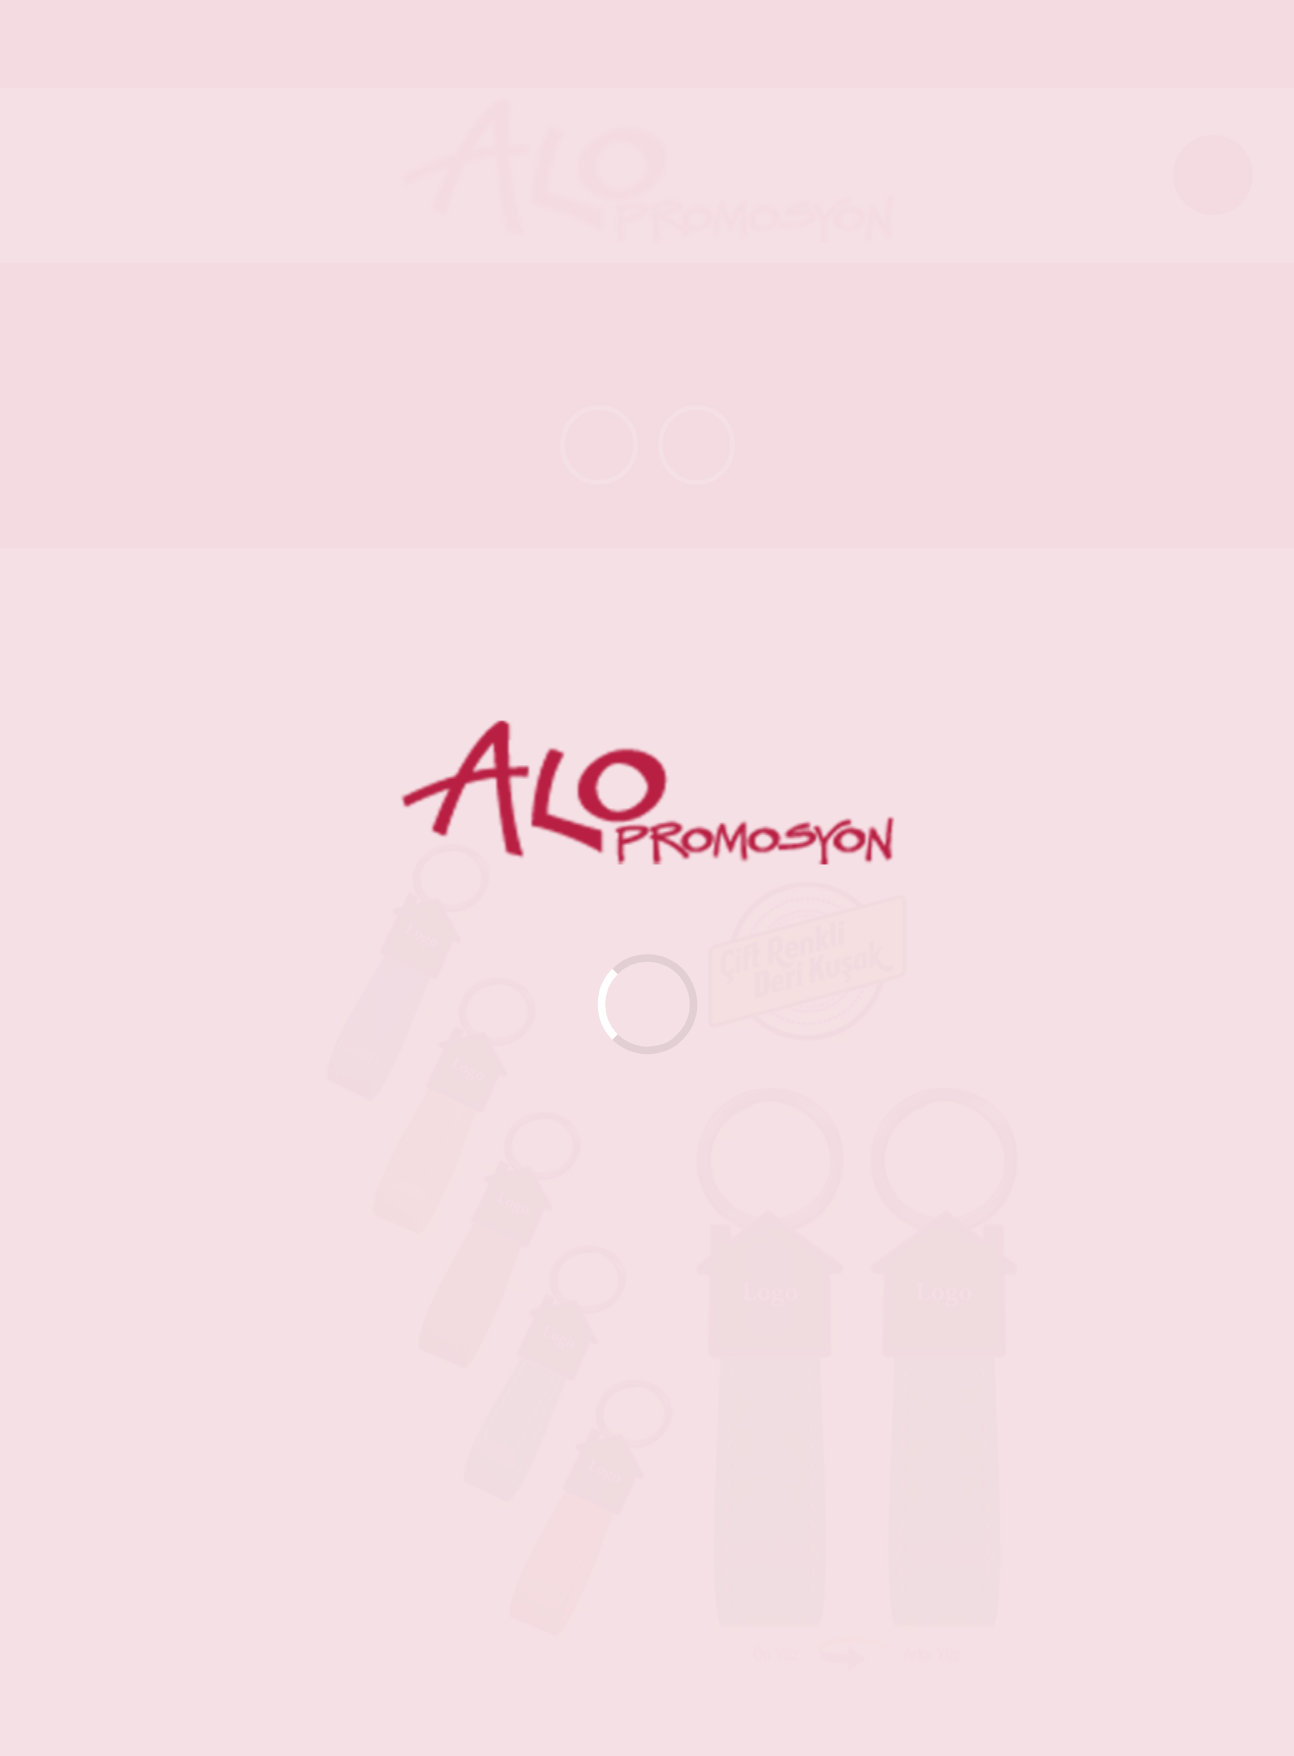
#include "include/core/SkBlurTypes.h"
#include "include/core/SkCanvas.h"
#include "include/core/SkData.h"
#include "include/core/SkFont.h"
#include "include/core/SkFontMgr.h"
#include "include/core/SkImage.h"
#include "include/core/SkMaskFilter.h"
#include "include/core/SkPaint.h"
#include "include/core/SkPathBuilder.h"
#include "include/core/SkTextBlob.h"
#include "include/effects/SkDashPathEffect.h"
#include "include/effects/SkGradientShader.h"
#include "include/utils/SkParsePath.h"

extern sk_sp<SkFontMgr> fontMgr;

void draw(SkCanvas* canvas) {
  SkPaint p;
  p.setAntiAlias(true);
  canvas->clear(SkColorSetRGB(245, 224, 229));
  p.setColor(SkColorSetRGB(244, 219, 225));
  canvas->drawRect(SkRect::MakeLTRB(0, 0, 1294, 88), p);
  canvas->drawImageRect(SkImages::DeferredFromEncodedData(SkData::MakeFromFileName("images/1.png")), SkRect::MakeLTRB(400, 98, 895, 243), SkSamplingOptions());
  canvas->drawCircle(1213, 175, 40, p);
  canvas->drawRect(SkRect::MakeLTRB(0, 263, 1294, 548), p);
  p.setStyle(SkPaint::kStroke_Style);
  p.setStrokeWidth(5);
  p.setColor(SkColorSetRGB(245, 224, 229));
  canvas->drawRoundRect(SkRect::MakeLTRB(562.5f, 407.5f, 635.5f, 482.5f), 36.5f, 36.5f, p);
  canvas->drawRoundRect(SkRect::MakeLTRB(660.5f, 407.5f, 732.5f, 482.5f), 36, 36, p);
  canvas->drawImageRect(SkImages::DeferredFromEncodedData(SkData::MakeFromFileName("images/3.png")), SkRect::MakeLTRB(321, 842, 1023, 1672), SkSamplingOptions());
  canvas->drawImageRect(SkImages::DeferredFromEncodedData(SkData::MakeFromFileName("images/2.png")), SkRect::MakeLTRB(400, 720, 895, 865), SkSamplingOptions());
  p.setStrokeWidth(7.5f);
  p.setColor(SkColorSetRGB(226, 207, 211));
  canvas->drawPath(SkPathBuilder().moveTo(615, 971.5f).cubicTo(623.5f, 963, 635.5f, 958, 647.5f, 958).cubicTo(688.5f, 958, 709, 1008, 680, 1037).cubicTo(674, 1043.5f, 665.5f, 1048, 656.5f, 1049.5f).cubicTo(641.5f, 1052.5f, 625.5f, 1047.5f, 615, 1037).detach(), p);
  p.setColor(SK_ColorWHITE);
  canvas->drawPath(SkPathBuilder().moveTo(615, 1037).cubicTo(597, 1019, 597, 989.5f, 615, 971.5f).detach(), p);
}
